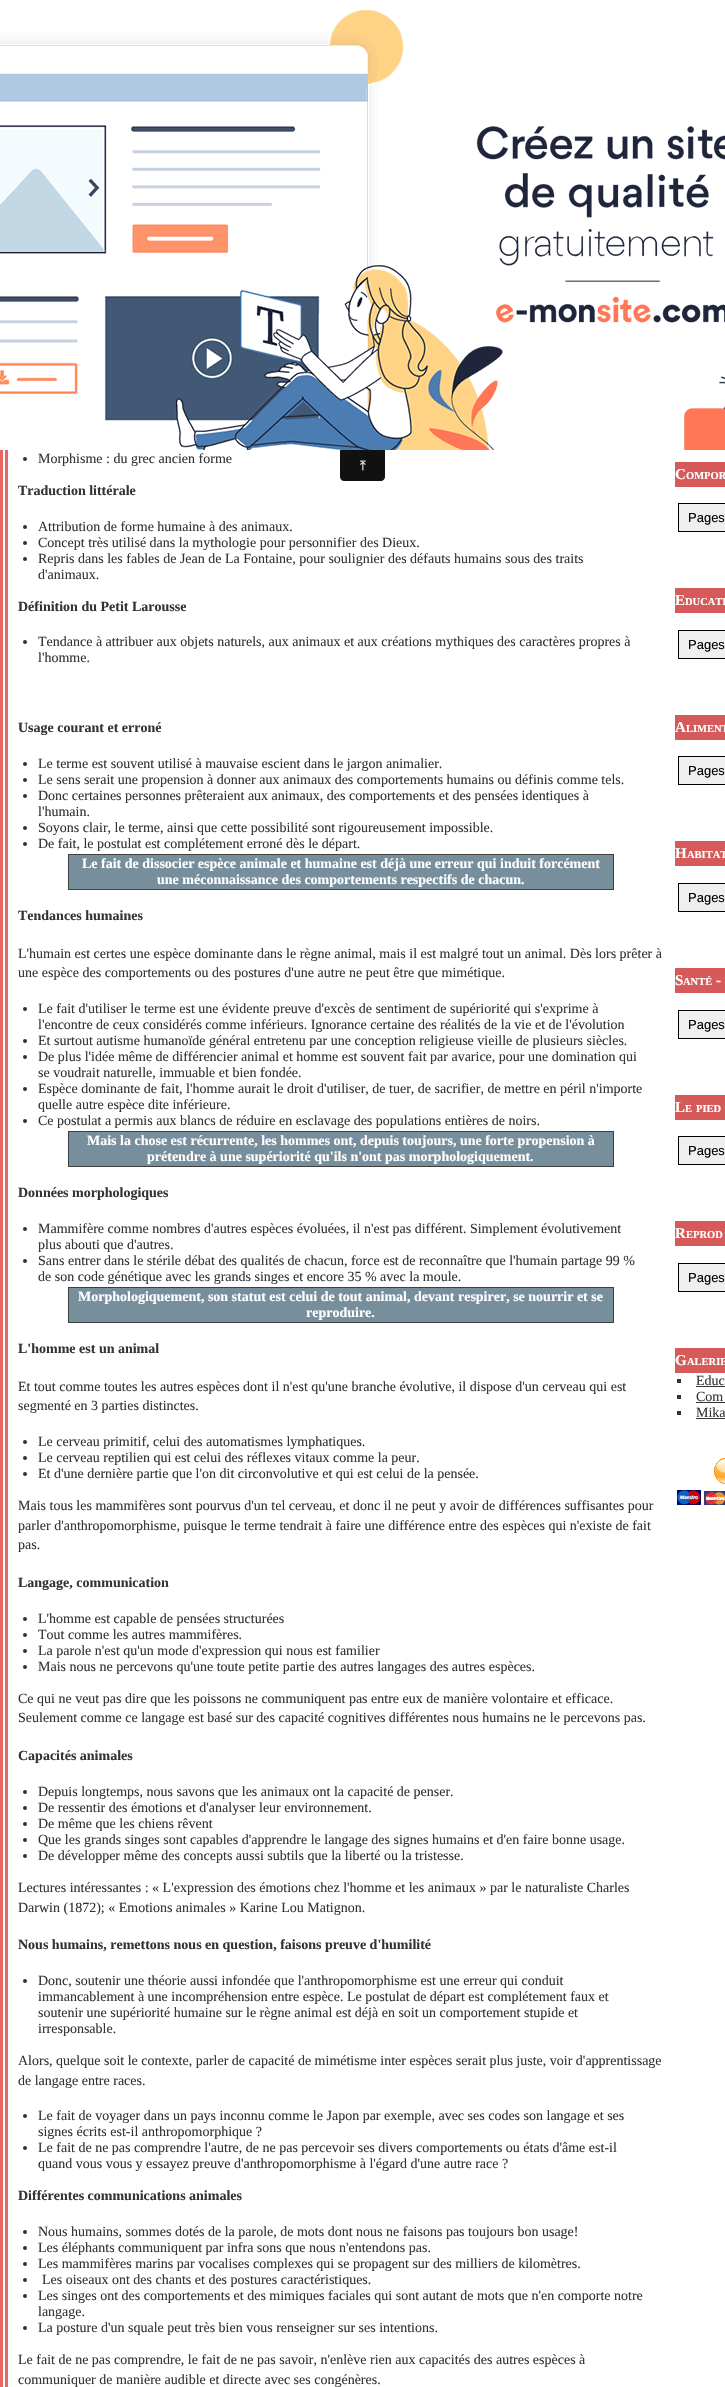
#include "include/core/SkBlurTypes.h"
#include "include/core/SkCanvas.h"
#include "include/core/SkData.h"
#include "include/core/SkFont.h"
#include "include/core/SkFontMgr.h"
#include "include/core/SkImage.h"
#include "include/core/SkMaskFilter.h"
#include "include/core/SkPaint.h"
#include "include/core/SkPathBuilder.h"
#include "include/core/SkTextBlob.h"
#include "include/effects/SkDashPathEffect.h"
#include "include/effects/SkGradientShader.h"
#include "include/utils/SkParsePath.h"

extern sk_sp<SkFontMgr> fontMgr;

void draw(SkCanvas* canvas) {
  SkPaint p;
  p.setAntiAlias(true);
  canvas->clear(SK_ColorWHITE);
  p.setStyle(SkPaint::kStroke_Style);
  p.setStrokeWidth(3);
  p.setColor(SkColorSetRGB(235, 101, 101));
  canvas->drawRect(SkRect::MakeLTRB(1.5f, 316.5f, 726.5f, 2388.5f), p);
  canvas->drawRect(SkRect::MakeLTRB(6.5f, 321.5f, 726.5f, 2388.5f), p);
  p.setStyle(SkPaint::kFill_Style);
  p.setColor(SkColorSetRGB(51, 51, 51));
  canvas->drawCircle(25, 459, 2, p);
  canvas->drawCircle(25, 527, 2, p);
  canvas->drawCircle(25, 543, 2, p);
  canvas->drawCircle(25, 559, 2, p);
  canvas->drawCircle(25, 642, 2, p);
  canvas->drawCircle(25, 764, 2, p);
  canvas->drawCircle(25, 780, 2, p);
  canvas->drawCircle(25, 796, 2, p);
  canvas->drawCircle(25, 828, 2, p);
  canvas->drawCircle(25, 844, 2, p);
  p.setColor(SkColorSetRGB(119, 143, 156));
  canvas->drawRect(SkRect::MakeLTRB(68.5f, 854.5f, 613.5f, 889.5f), p);
  p.setStyle(SkPaint::kStroke_Style);
  p.setStrokeWidth(1);
  p.setColor(SkColorSetRGB(63, 63, 59));
  canvas->drawRect(SkRect::MakeLTRB(68.5f, 854.5f, 613.5f, 889.5f), p);
  p.setStyle(SkPaint::kFill_Style);
  p.setColor(SkColorSetRGB(51, 51, 51));
  canvas->drawCircle(25, 1009, 2, p);
  canvas->drawCircle(25, 1041, 2, p);
  canvas->drawCircle(25, 1057, 2, p);
  canvas->drawCircle(25, 1089, 2, p);
  canvas->drawCircle(25, 1121, 2, p);
  p.setColor(SkColorSetRGB(119, 143, 156));
  canvas->drawRect(SkRect::MakeLTRB(68.5f, 1131.5f, 613.5f, 1166.5f), p);
  p.setStyle(SkPaint::kStroke_Style);
  p.setColor(SkColorSetRGB(63, 63, 59));
  canvas->drawRect(SkRect::MakeLTRB(68.5f, 1131.5f, 613.5f, 1166.5f), p);
  p.setStyle(SkPaint::kFill_Style);
  p.setColor(SkColorSetRGB(51, 51, 51));
  canvas->drawCircle(25, 1229, 2, p);
  canvas->drawCircle(25, 1261, 2, p);
  p.setColor(SkColorSetRGB(119, 143, 156));
  canvas->drawRect(SkRect::MakeLTRB(68.5f, 1287.5f, 613.5f, 1322.5f), p);
  p.setStyle(SkPaint::kStroke_Style);
  p.setColor(SkColorSetRGB(63, 63, 59));
  canvas->drawRect(SkRect::MakeLTRB(68.5f, 1287.5f, 613.5f, 1322.5f), p);
  p.setStyle(SkPaint::kFill_Style);
  p.setColor(SkColorSetRGB(51, 51, 51));
  canvas->drawCircle(25, 1442, 2, p);
  canvas->drawCircle(25, 1458, 2, p);
  canvas->drawCircle(25, 1474, 2, p);
  canvas->drawCircle(25, 1619, 2, p);
  canvas->drawCircle(25, 1635, 2, p);
  canvas->drawCircle(25, 1651, 2, p);
  canvas->drawCircle(25, 1667, 2, p);
  canvas->drawCircle(25, 1792, 2, p);
  canvas->drawCircle(25, 1808, 2, p);
  canvas->drawCircle(25, 1824, 2, p);
  canvas->drawCircle(25, 1840, 2, p);
  canvas->drawCircle(25, 1856, 2, p);
  canvas->drawCircle(25, 1981, 2, p);
  canvas->drawCircle(25, 2116, 2, p);
  canvas->drawCircle(25, 2148, 2, p);
  canvas->drawCircle(25, 2232, 2, p);
  canvas->drawCircle(25, 2248, 2, p);
  canvas->drawCircle(25, 2264, 2, p);
  canvas->drawCircle(25, 2280, 2, p);
  canvas->drawCircle(25, 2296, 2, p);
  canvas->drawCircle(25, 2328, 2, p);
  p.setColor(SkColorSetRGB(214, 90, 90));
  canvas->drawRect(SkRect::MakeLTRB(675, 462, 725, 487), p);
  p.setColor(SkColorSetRGB(239, 239, 239));
  canvas->drawRect(SkRect::MakeLTRB(678.5f, 503.5f, 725.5f, 531.5f), p);
  p.setStyle(SkPaint::kStroke_Style);
  p.setColor(SK_ColorBLACK);
  canvas->drawRect(SkRect::MakeLTRB(678.5f, 503.5f, 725.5f, 531.5f), p);
  p.setStyle(SkPaint::kFill_Style);
  p.setColor(SkColorSetRGB(214, 90, 90));
  canvas->drawRect(SkRect::MakeLTRB(675, 588, 725, 613), p);
  p.setColor(SkColorSetRGB(239, 239, 239));
  canvas->drawRect(SkRect::MakeLTRB(678.5f, 630.5f, 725.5f, 658.5f), p);
  p.setStyle(SkPaint::kStroke_Style);
  p.setColor(SK_ColorBLACK);
  canvas->drawRect(SkRect::MakeLTRB(678.5f, 630.5f, 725.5f, 658.5f), p);
  p.setStyle(SkPaint::kFill_Style);
  p.setColor(SkColorSetRGB(214, 90, 90));
  canvas->drawRect(SkRect::MakeLTRB(675, 715, 725, 740), p);
  p.setColor(SkColorSetRGB(239, 239, 239));
  canvas->drawRect(SkRect::MakeLTRB(678.5f, 756.5f, 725.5f, 784.5f), p);
  p.setStyle(SkPaint::kStroke_Style);
  p.setColor(SK_ColorBLACK);
  canvas->drawRect(SkRect::MakeLTRB(678.5f, 756.5f, 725.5f, 784.5f), p);
  p.setStyle(SkPaint::kFill_Style);
  p.setColor(SkColorSetRGB(214, 90, 90));
  canvas->drawRect(SkRect::MakeLTRB(675, 841, 725, 866), p);
  p.setColor(SkColorSetRGB(239, 239, 239));
  canvas->drawRect(SkRect::MakeLTRB(678.5f, 883.5f, 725.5f, 911.5f), p);
  p.setStyle(SkPaint::kStroke_Style);
  p.setColor(SK_ColorBLACK);
  canvas->drawRect(SkRect::MakeLTRB(678.5f, 883.5f, 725.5f, 911.5f), p);
  p.setStyle(SkPaint::kFill_Style);
  p.setColor(SkColorSetRGB(214, 90, 90));
  canvas->drawRect(SkRect::MakeLTRB(675, 968, 725, 993), p);
  p.setColor(SkColorSetRGB(239, 239, 239));
  canvas->drawRect(SkRect::MakeLTRB(678.5f, 1010.5f, 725.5f, 1038.5f), p);
  p.setStyle(SkPaint::kStroke_Style);
  p.setColor(SK_ColorBLACK);
  canvas->drawRect(SkRect::MakeLTRB(678.5f, 1010.5f, 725.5f, 1038.5f), p);
  p.setStyle(SkPaint::kFill_Style);
  p.setColor(SkColorSetRGB(214, 90, 90));
  canvas->drawRect(SkRect::MakeLTRB(675, 1095, 725, 1120), p);
  p.setColor(SkColorSetRGB(239, 239, 239));
  canvas->drawRect(SkRect::MakeLTRB(678.5f, 1136.5f, 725.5f, 1164.5f), p);
  p.setStyle(SkPaint::kStroke_Style);
  p.setColor(SK_ColorBLACK);
  canvas->drawRect(SkRect::MakeLTRB(678.5f, 1136.5f, 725.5f, 1164.5f), p);
  p.setStyle(SkPaint::kFill_Style);
  p.setColor(SkColorSetRGB(214, 90, 90));
  canvas->drawRect(SkRect::MakeLTRB(675, 1221, 725, 1246), p);
  p.setColor(SkColorSetRGB(239, 239, 239));
  canvas->drawRect(SkRect::MakeLTRB(678.5f, 1263.5f, 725.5f, 1291.5f), p);
  p.setStyle(SkPaint::kStroke_Style);
  p.setColor(SK_ColorBLACK);
  canvas->drawRect(SkRect::MakeLTRB(678.5f, 1263.5f, 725.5f, 1291.5f), p);
  p.setStyle(SkPaint::kFill_Style);
  p.setColor(SkColorSetRGB(214, 90, 90));
  canvas->drawRect(SkRect::MakeLTRB(675, 1348, 725, 1373), p);
  p.setColor(SkColorSetRGB(51, 51, 51));
  canvas->drawRect(SkRect::MakeLTRB(677, 1379, 681, 1383), p);
  canvas->drawRect(SkRect::MakeLTRB(696, 1386, 725, 1387), p);
  canvas->drawRect(SkRect::MakeLTRB(677, 1395, 681, 1399), p);
  canvas->drawRect(SkRect::MakeLTRB(696, 1402, 725, 1403), p);
  canvas->drawRect(SkRect::MakeLTRB(677, 1411, 681, 1415), p);
  canvas->drawRect(SkRect::MakeLTRB(696, 1418, 725, 1419), p);
  canvas->drawImageRect(SkImages::DeferredFromEncodedData(SkData::MakeFromFileName("images/1.png")), SkRect::MakeLTRB(677, 1458, 725, 1505), SkSamplingOptions());
  p.setColor(SK_ColorWHITE);
  canvas->drawRect(SkRect::MakeLTRB(0, 315, 725, 450), p);
  canvas->drawImageRect(SkImages::DeferredFromEncodedData(SkData::MakeFromFileName("images/2.png")), SkRect::MakeLTRB(0, 10, 725, 450), SkSamplingOptions());
  p.setColor(SkColorSetRGB(17, 17, 17));
  canvas->drawPath(SkPathBuilder().moveTo(340, 450).lineTo(385, 450).lineTo(385, 477).cubicTo(385, 479, 383, 481, 381, 481).lineTo(344, 481).cubicTo(342, 481, 340, 479, 340, 477).close().detach(), p);
  SkFont font1(fontMgr->matchFamilyStyle("Liberation Serif", SkFontStyle::Normal()), 14);
  font1.setSubpixel(true);
  p.setColor(SkColorSetRGB(51, 51, 51));
  canvas->drawString("Morphisme : du grec ancien forme", 38, 463, font1, p);
  SkFont font2(fontMgr->matchFamilyStyle("Liberation Serif", SkFontStyle::Bold()), 14);
  font2.setSubpixel(true);
  canvas->drawString("Traduction littérale", 18, 495, font2, p);
  canvas->drawString("Attribution de forme humaine à des animaux.", 38, 531, font1, p);
  canvas->drawString("Concept très utilisé dans la mythologie pour personnifier des Dieux.", 38, 547, font1, p);
  canvas->drawString("Repris dans les fables de Jean de La Fontaine, pour soulignier des défauts humains sous des traits", 38, 563, font1, p);
  canvas->drawString("d'animaux.", 38, 579, font1, p);
  canvas->drawString("Définition du Petit Larousse", 18, 611, font2, p);
  canvas->drawString("Tendance à attribuer aux objets naturels, aux animaux et aux créations mythiques des caractères propres à", 38, 646, font1, p);
  canvas->drawString("l'homme.", 38, 662, font1, p);
  canvas->drawString("Usage courant et erroné", 18, 732, font2, p);
  canvas->drawString("Le terme est souvent utilisé à mauvaise escient dans le jargon animalier.", 38, 768, font1, p);
  canvas->drawString("Le sens serait une propension à donner aux animaux des comportements humains ou définis comme tels.", 38, 784, font1, p);
  canvas->drawString("Donc certaines personnes prêteraient aux animaux, des comportements et des pensées identiques à", 38, 800, font1, p);
  canvas->drawString("l'humain.", 38, 816, font1, p);
  canvas->drawString("Soyons clair, le terme, ainsi que cette possibilité sont rigoureusement impossible.", 38, 832, font1, p);
  canvas->drawString("De fait, le postulat est complétement erroné dès le départ.", 38, 848, font1, p);
  p.setColor(SK_ColorWHITE);
  canvas->drawString("Le fait de dissocier espèce animale et humaine est déjà une erreur qui induit forcément", 82, 868, font2, p);
  canvas->drawString("une méconnaissance des comportements respectifs de chacun.", 157, 884, font2, p);
  p.setColor(SkColorSetRGB(51, 51, 51));
  canvas->drawString("Tendances humaines", 18, 920, font2, p);
  canvas->drawString("L'humain est certes une espèce dominante dans le règne animal, mais il est malgré tout un animal. Dès lors prêter à", 18, 958, font1, p);
  canvas->drawString("une espèce des comportements ou des postures d'une autre ne peut être que mimétique.", 18, 977, font1, p);
  canvas->drawString("Le fait d'utiliser le terme est une évidente preuve d'excès de sentiment de supériorité qui s'exprime à", 38, 1013, font1, p);
  canvas->drawString("l'encontre de ceux considérés comme inférieurs. Ignorance certaine des réalités de la vie et de l'évolution", 38, 1029, font1, p);
  canvas->drawString("Et surtout autisme humanoïde général entretenu par une conception religieuse vieille de plusieurs siècles.", 38, 1045, font1, p);
  canvas->drawString("De plus l'idée même de différencier animal et homme est souvent fait par avarice, pour une domination qui", 38, 1061, font1, p);
  canvas->drawString("se voudrait naturelle, immuable et bien fondée.", 38, 1077, font1, p);
  canvas->drawString("Espèce dominante de fait, l'homme aurait le droit d'utiliser, de tuer, de sacrifier, de mettre en péril n'importe", 38, 1093, font1, p);
  canvas->drawString("quelle autre espèce dite inférieure.", 38, 1109, font1, p);
  canvas->drawString("Ce postulat a permis aux blancs de réduire en esclavage des populations entières de noirs.", 38, 1125, font1, p);
  p.setColor(SK_ColorWHITE);
  canvas->drawString("Mais la chose est récurrente, les hommes ont, depuis toujours, une forte propension à", 87, 1145, font2, p);
  canvas->drawString("prétendre à une supériorité qu'ils n'ont pas morphologiquement.", 147, 1161, font2, p);
  p.setColor(SkColorSetRGB(51, 51, 51));
  canvas->drawString("Données morphologiques", 18, 1197, font2, p);
  canvas->drawString("Mammifère comme nombres d'autres espèces évoluées, il n'est pas différent. Simplement évolutivement", 38, 1233, font1, p);
  canvas->drawString("plus abouti que d'autres.", 38, 1249, font1, p);
  canvas->drawString("Sans entrer dans le stérile débat des qualités de chacun, force est de reconnaître que l'humain partage 99 %", 38, 1265, font1, p);
  canvas->drawString("de son code génétique avec les grands singes et encore 35 % avec la moule.", 38, 1281, font1, p);
  p.setColor(SK_ColorWHITE);
  canvas->drawString("Morphologiquement, son statut est celui de tout animal, devant respirer, se nourrir et se", 78, 1301, font2, p);
  canvas->drawString("reproduire.", 306, 1317, font2, p);
  p.setColor(SkColorSetRGB(51, 51, 51));
  canvas->drawString("L'homme est un animal", 18, 1353, font2, p);
  canvas->drawString("Et tout comme toutes les autres espèces dont il n'est qu'une branche évolutive, il dispose d'un cerveau qui est", 18, 1391, font1, p);
  canvas->drawString("segmenté en 3 parties distinctes.", 18, 1410, font1, p);
  canvas->drawString("Le cerveau primitif, celui des automatismes lymphatiques.", 38, 1446, font1, p);
  canvas->drawString("Le cerveau reptilien qui est celui des réflexes vitaux comme la peur.", 38, 1462, font1, p);
  canvas->drawString("Et d'une dernière partie que l'on dit circonvolutive et qui est celui de la pensée.", 38, 1478, font1, p);
  canvas->drawString("Mais tous les mammifères sont pourvus d'un tel cerveau, et donc il ne peut y avoir de différences suffisantes pour", 18, 1510, font1, p);
  canvas->drawString("parler d'anthropomorphisme, puisque le terme tendrait à faire une différence entre des espèces qui n'existe de fait", 18, 1530, font1, p);
  canvas->drawString("pas.", 18, 1549, font1, p);
  canvas->drawString("Langage, communication", 18, 1587, font2, p);
  canvas->drawString("L'homme est capable de pensées structurées", 38, 1623, font1, p);
  canvas->drawString("Tout comme les autres mammifères.", 38, 1639, font1, p);
  canvas->drawString("La parole n'est qu'un mode d'expression qui nous est familier", 38, 1655, font1, p);
  canvas->drawString("Mais nous ne percevons qu'une toute petite partie des autres langages des autres espèces.", 38, 1671, font1, p);
  canvas->drawString("Ce qui ne veut pas dire que les poissons ne communiquent pas entre eux de manière volontaire et efficace.", 18, 1703, font1, p);
  canvas->drawString("Seulement comme ce langage est basé sur des capacité cognitives différentes nous humains ne le percevons pas.", 18, 1722, font1, p);
  canvas->drawString("Capacités animales", 18, 1760, font2, p);
  canvas->drawString("Depuis longtemps, nous savons que les animaux ont la capacité de penser.", 38, 1796, font1, p);
  canvas->drawString("De ressentir des émotions et d'analyser leur environnement.", 38, 1812, font1, p);
  canvas->drawString("De même que les chiens rêvent", 38, 1828, font1, p);
  canvas->drawString("Que les grands singes sont capables d'apprendre le langage des signes humains et d'en faire bonne usage.", 38, 1844, font1, p);
  canvas->drawString("De développer même des concepts aussi subtils que la liberté ou la tristesse.", 38, 1860, font1, p);
  canvas->drawString("Lectures intéressantes : « L'expression des émotions chez l'homme et les animaux » par le naturaliste Charles", 18, 1892, font1, p);
  canvas->drawString("Darwin (1872); « Emotions animales » Karine Lou Matignon.", 18, 1912, font1, p);
  canvas->drawString("Nous humains, remettons nous en question, faisons preuve d'humilité", 18, 1949, font2, p);
  canvas->drawString("Donc, soutenir une théorie aussi infondée que l'anthropomorphisme est une erreur qui conduit", 38, 1985, font1, p);
  canvas->drawString("immancablement à une incompréhension entre espèce. Le postulat de départ est complétement faux et", 38, 2001, font1, p);
  canvas->drawString("soutenir une supériorité humaine sur le règne animal est déjà en soit un comportement stupide et", 38, 2017, font1, p);
  canvas->drawString("irresponsable.", 38, 2033, font1, p);
  canvas->drawString("Alors, quelque soit le contexte, parler de capacité de mimétisme inter espèces serait plus juste, voir d'apprentissage", 18, 2065, font1, p);
  canvas->drawString("de langage entre races.", 18, 2085, font1, p);
  canvas->drawString("Le fait de voyager dans un pays inconnu comme le Japon par exemple, avec ses codes son langage et ses", 38, 2120, font1, p);
  canvas->drawString("signes écrits est-il anthropomorphique ?", 38, 2136, font1, p);
  canvas->drawString("Le fait de ne pas comprendre l'autre, de ne pas percevoir ses divers comportements ou états d'âme est-il", 38, 2152, font1, p);
  canvas->drawString("quand vous vous y essayez preuve d'anthropomorphisme à l'égard d'une autre race ?", 38, 2168, font1, p);
  canvas->drawString("Différentes communications animales", 18, 2200, font2, p);
  canvas->drawString("Nous humains, sommes dotés de la parole, de mots dont nous ne faisons pas toujours bon usage!", 38, 2236, font1, p);
  canvas->drawString("Les éléphants communiquent par infra sons que nous n'entendons pas.", 38, 2252, font1, p);
  canvas->drawString("Les mammifères marins par vocalises complexes qui se propagent sur des milliers de kilomètres.", 38, 2268, font1, p);
  canvas->drawString("Les oiseaux ont des chants et des postures caractéristiques.", 42, 2284, font1, p);
  canvas->drawString("Les singes ont des comportements et des mimiques faciales qui sont autant de mots que n'en comporte notre", 38, 2300, font1, p);
  canvas->drawString("langage.", 38, 2316, font1, p);
  canvas->drawString("La posture d'un squale peut très bien vous renseigner sur ses intentions.", 38, 2332, font1, p);
  canvas->drawString("Le fait de ne pas comprendre, le fait de ne pas savoir, n'enlève rien aux capacités des autres espèces à", 18, 2364, font1, p);
  canvas->drawString("communiquer de manière audible et directe avec ses congénères.", 18, 2384, font1, p);
  SkFont font3(fontMgr->matchFamilyStyle("Liberation Serif", SkFontStyle::Bold()), 15);
  font3.setSubpixel(true);
  p.setColor(SK_ColorWHITE);
  canvas->drawString("C", 675, 479, font3, p);
  SkFont font4(fontMgr->matchFamilyStyle("Liberation Serif", SkFontStyle::Bold()), 10.5f);
  font4.setSubpixel(true);
  canvas->drawString("OMPOR", 686, 479, font4, p);
  SkFont font5(fontMgr->matchFamilyStyle("Liberation Sans", SkFontStyle::Normal()), 13);
  font5.setSubpixel(true);
  p.setColor(SK_ColorBLACK);
  canvas->drawString("Pages", 688, 522, font5, p);
  p.setColor(SK_ColorWHITE);
  canvas->drawString("E", 675, 605, font3, p);
  canvas->drawString("DUCATI", 685, 605, font4, p);
  p.setColor(SK_ColorBLACK);
  canvas->drawString("Pages", 688, 649, font5, p);
  p.setColor(SK_ColorWHITE);
  canvas->drawString("A", 675, 732, font3, p);
  canvas->drawString("LIMENT", 686, 732, font4, p);
  p.setColor(SK_ColorBLACK);
  canvas->drawString("Pages", 688, 775, font5, p);
  p.setColor(SK_ColorWHITE);
  canvas->drawString("H", 675, 858, font3, p);
  canvas->drawString("ABITAT", 687, 858, font4, p);
  p.setColor(SK_ColorBLACK);
  canvas->drawString("Pages", 688, 902, font5, p);
  p.setColor(SK_ColorWHITE);
  canvas->drawString("S", 675, 985, font3, p);
  canvas->drawString("ANTÉ", 683, 985, font4, p);
  canvas->drawString("-", 716, 985, font3, p);
  p.setColor(SK_ColorBLACK);
  canvas->drawString("Pages", 688, 1029, font5, p);
  p.setColor(SK_ColorWHITE);
  canvas->drawString("L", 675, 1112, font3, p);
  canvas->drawString("E", 685, 1112, font4, p);
  canvas->drawString("PIED", 696, 1112, font4, p);
  p.setColor(SK_ColorBLACK);
  canvas->drawString("Pages", 688, 1155, font5, p);
  p.setColor(SK_ColorWHITE);
  canvas->drawString("R", 675, 1238, font3, p);
  canvas->drawString("EPROD", 686, 1238, font4, p);
  p.setColor(SK_ColorBLACK);
  canvas->drawString("Pages", 688, 1282, font5, p);
  p.setColor(SK_ColorWHITE);
  canvas->drawString("G", 675, 1365, font3, p);
  canvas->drawString("ALERIE", 687, 1365, font4, p);
  p.setColor(SkColorSetRGB(51, 51, 51));
  canvas->drawString("Educ", 696, 1385, font1, p);
  canvas->drawString("Com", 696, 1401, font1, p);
  canvas->drawString("Mika", 696, 1417, font1, p);
  SkFont font6(fontMgr->matchFamilyStyle("FreeSerif", SkFontStyle::Normal()), 13);
  font6.setSubpixel(true);
  p.setColor(SK_ColorWHITE);
  canvas->drawString("⤒", 360, 470, font6, p);
}
